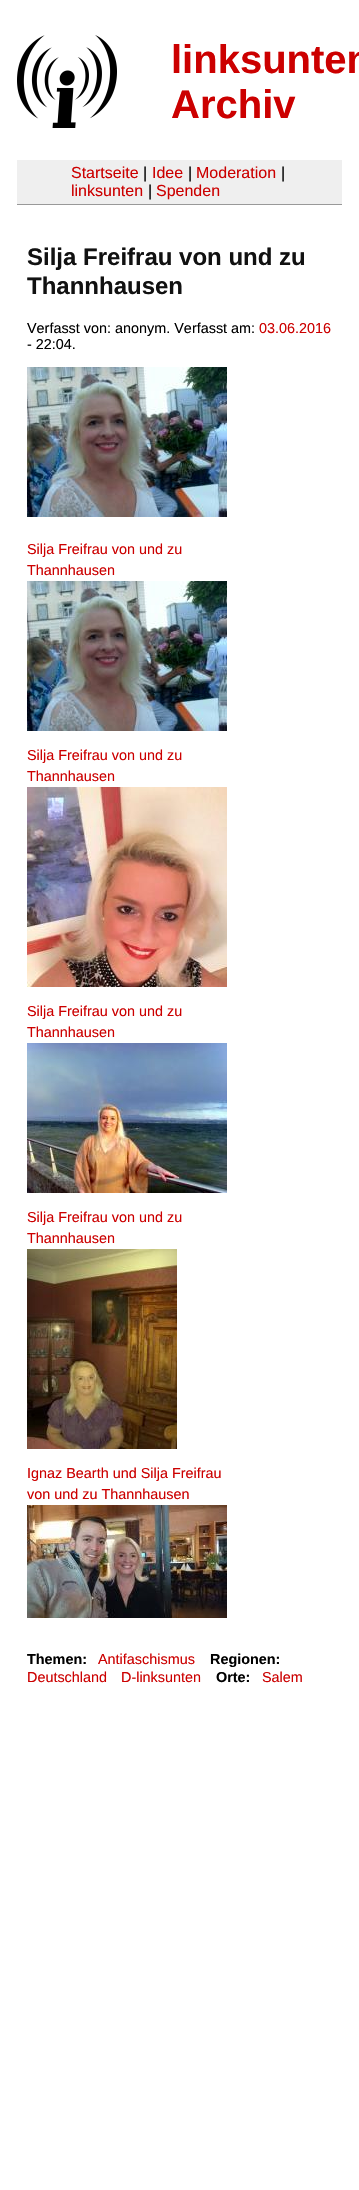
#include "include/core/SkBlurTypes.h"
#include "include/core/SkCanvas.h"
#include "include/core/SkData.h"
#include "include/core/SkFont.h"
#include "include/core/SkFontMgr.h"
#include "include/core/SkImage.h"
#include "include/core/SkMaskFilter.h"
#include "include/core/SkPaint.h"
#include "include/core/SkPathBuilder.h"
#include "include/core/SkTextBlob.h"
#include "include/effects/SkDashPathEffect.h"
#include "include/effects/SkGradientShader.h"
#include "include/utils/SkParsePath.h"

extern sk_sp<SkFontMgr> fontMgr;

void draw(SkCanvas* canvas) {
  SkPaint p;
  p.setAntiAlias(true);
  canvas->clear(SK_ColorWHITE);
  canvas->drawImageRect(SkImages::DeferredFromEncodedData(SkData::MakeFromFileName("images/1.png")), SkRect::MakeLTRB(17, 35, 117, 128), SkSamplingOptions());
  p.setColor(SkColorSetRGB(239, 239, 239));
  canvas->drawRect(SkRect::MakeLTRB(17, 160, 342, 204), p);
  p.setColor(SkColorSetRGB(153, 153, 153));
  canvas->drawRect(SkRect::MakeLTRB(17, 204, 342, 205), p);
  canvas->drawImageRect(SkImages::DeferredFromEncodedData(SkData::MakeFromFileName("images/2.png")), SkRect::MakeLTRB(27, 367, 227, 517), SkSamplingOptions());
  canvas->drawImageRect(SkImages::DeferredFromEncodedData(SkData::MakeFromFileName("images/2.png")), SkRect::MakeLTRB(27, 581, 227, 731), SkSamplingOptions());
  canvas->drawImageRect(SkImages::DeferredFromEncodedData(SkData::MakeFromFileName("images/3.png")), SkRect::MakeLTRB(27, 787, 227, 987), SkSamplingOptions());
  canvas->drawImageRect(SkImages::DeferredFromEncodedData(SkData::MakeFromFileName("images/4.png")), SkRect::MakeLTRB(27, 1043, 227, 1193), SkSamplingOptions());
  canvas->drawImageRect(SkImages::DeferredFromEncodedData(SkData::MakeFromFileName("images/5.png")), SkRect::MakeLTRB(27, 1249, 177, 1449), SkSamplingOptions());
  canvas->drawImageRect(SkImages::DeferredFromEncodedData(SkData::MakeFromFileName("images/6.png")), SkRect::MakeLTRB(27, 1505, 227, 1618), SkSamplingOptions());
  SkFont font1(fontMgr->matchFamilyStyle("Liberation Sans", SkFontStyle::Bold()), 40);
  font1.setSubpixel(true);
  p.setColor(SkColorSetRGB(204, 0, 0));
  canvas->drawString("linksunten", 171, 73, font1, p);
  canvas->drawString("Archiv", 171, 118, font1, p);
  SkFont font2(fontMgr->matchFamilyStyle("Liberation Sans", SkFontStyle::Normal()), 16);
  font2.setSubpixel(true);
  canvas->drawString("Startseite", 71, 178, font2, p);
  p.setColor(SK_ColorBLACK);
  canvas->drawString("|", 143, 178, font2, p);
  p.setColor(SkColorSetRGB(204, 0, 0));
  canvas->drawString("Idee", 152, 178, font2, p);
  p.setColor(SK_ColorBLACK);
  canvas->drawString("|", 188, 178, font2, p);
  p.setColor(SkColorSetRGB(204, 0, 0));
  canvas->drawString("Moderation", 196, 178, font2, p);
  p.setColor(SK_ColorBLACK);
  canvas->drawString("|", 281, 178, font2, p);
  p.setColor(SkColorSetRGB(204, 0, 0));
  canvas->drawString("linksunten", 71, 196, font2, p);
  p.setColor(SK_ColorBLACK);
  canvas->drawString("|", 148, 196, font2, p);
  p.setColor(SkColorSetRGB(204, 0, 0));
  canvas->drawString("Spenden", 156, 196, font2, p);
  SkFont font3(fontMgr->matchFamilyStyle("Liberation Sans", SkFontStyle::Bold()), 24);
  font3.setSubpixel(true);
  p.setColor(SkColorSetRGB(17, 17, 17));
  canvas->drawString("Silja Freifrau von und zu", 27, 265, font3, p);
  canvas->drawString("Thannhausen", 27, 294, font3, p);
  SkFont font4(fontMgr->matchFamilyStyle("Liberation Sans", SkFontStyle::Normal()), 14.4f);
  font4.setSubpixel(true);
  p.setColor(SK_ColorBLACK);
  canvas->drawString("Verfasst von: anonym. Verfasst am:", 27, 333, font4, p);
  p.setColor(SkColorSetRGB(204, 0, 0));
  canvas->drawString("03.06.2016", 259, 333, font4, p);
  p.setColor(SK_ColorBLACK);
  canvas->drawString("- 22:04.", 27, 349, font4, p);
  p.setColor(SkColorSetRGB(204, 0, 0));
  canvas->drawString("Silja Freifrau von und zu", 27, 554, font4, p);
  canvas->drawString("Thannhausen", 27, 575, font4, p);
  canvas->drawString("Silja Freifrau von und zu", 27, 760, font4, p);
  canvas->drawString("Thannhausen", 27, 781, font4, p);
  canvas->drawString("Silja Freifrau von und zu", 27, 1016, font4, p);
  canvas->drawString("Thannhausen", 27, 1037, font4, p);
  canvas->drawString("Silja Freifrau von und zu", 27, 1222, font4, p);
  canvas->drawString("Thannhausen", 27, 1243, font4, p);
  canvas->drawString("Ignaz Bearth und Silja Freifrau", 27, 1478, font4, p);
  canvas->drawString("von und zu Thannhausen", 27, 1499, font4, p);
  SkFont font5(fontMgr->matchFamilyStyle("Liberation Sans", SkFontStyle::Bold()), 14.4f);
  font5.setSubpixel(true);
  p.setColor(SK_ColorBLACK);
  canvas->drawString("Themen:", 27, 1664, font5, p);
  p.setColor(SkColorSetRGB(204, 0, 0));
  canvas->drawString("Antifaschismus", 98, 1664, font4, p);
  p.setColor(SK_ColorBLACK);
  canvas->drawString("Regionen:", 210, 1664, font5, p);
  p.setColor(SkColorSetRGB(204, 0, 0));
  canvas->drawString("Deutschland", 27, 1682, font4, p);
  canvas->drawString("D-linksunten", 121, 1682, font4, p);
  p.setColor(SK_ColorBLACK);
  canvas->drawString("Orte:", 216, 1682, font5, p);
  p.setColor(SkColorSetRGB(204, 0, 0));
  canvas->drawString("Salem", 262, 1682, font4, p);
}
